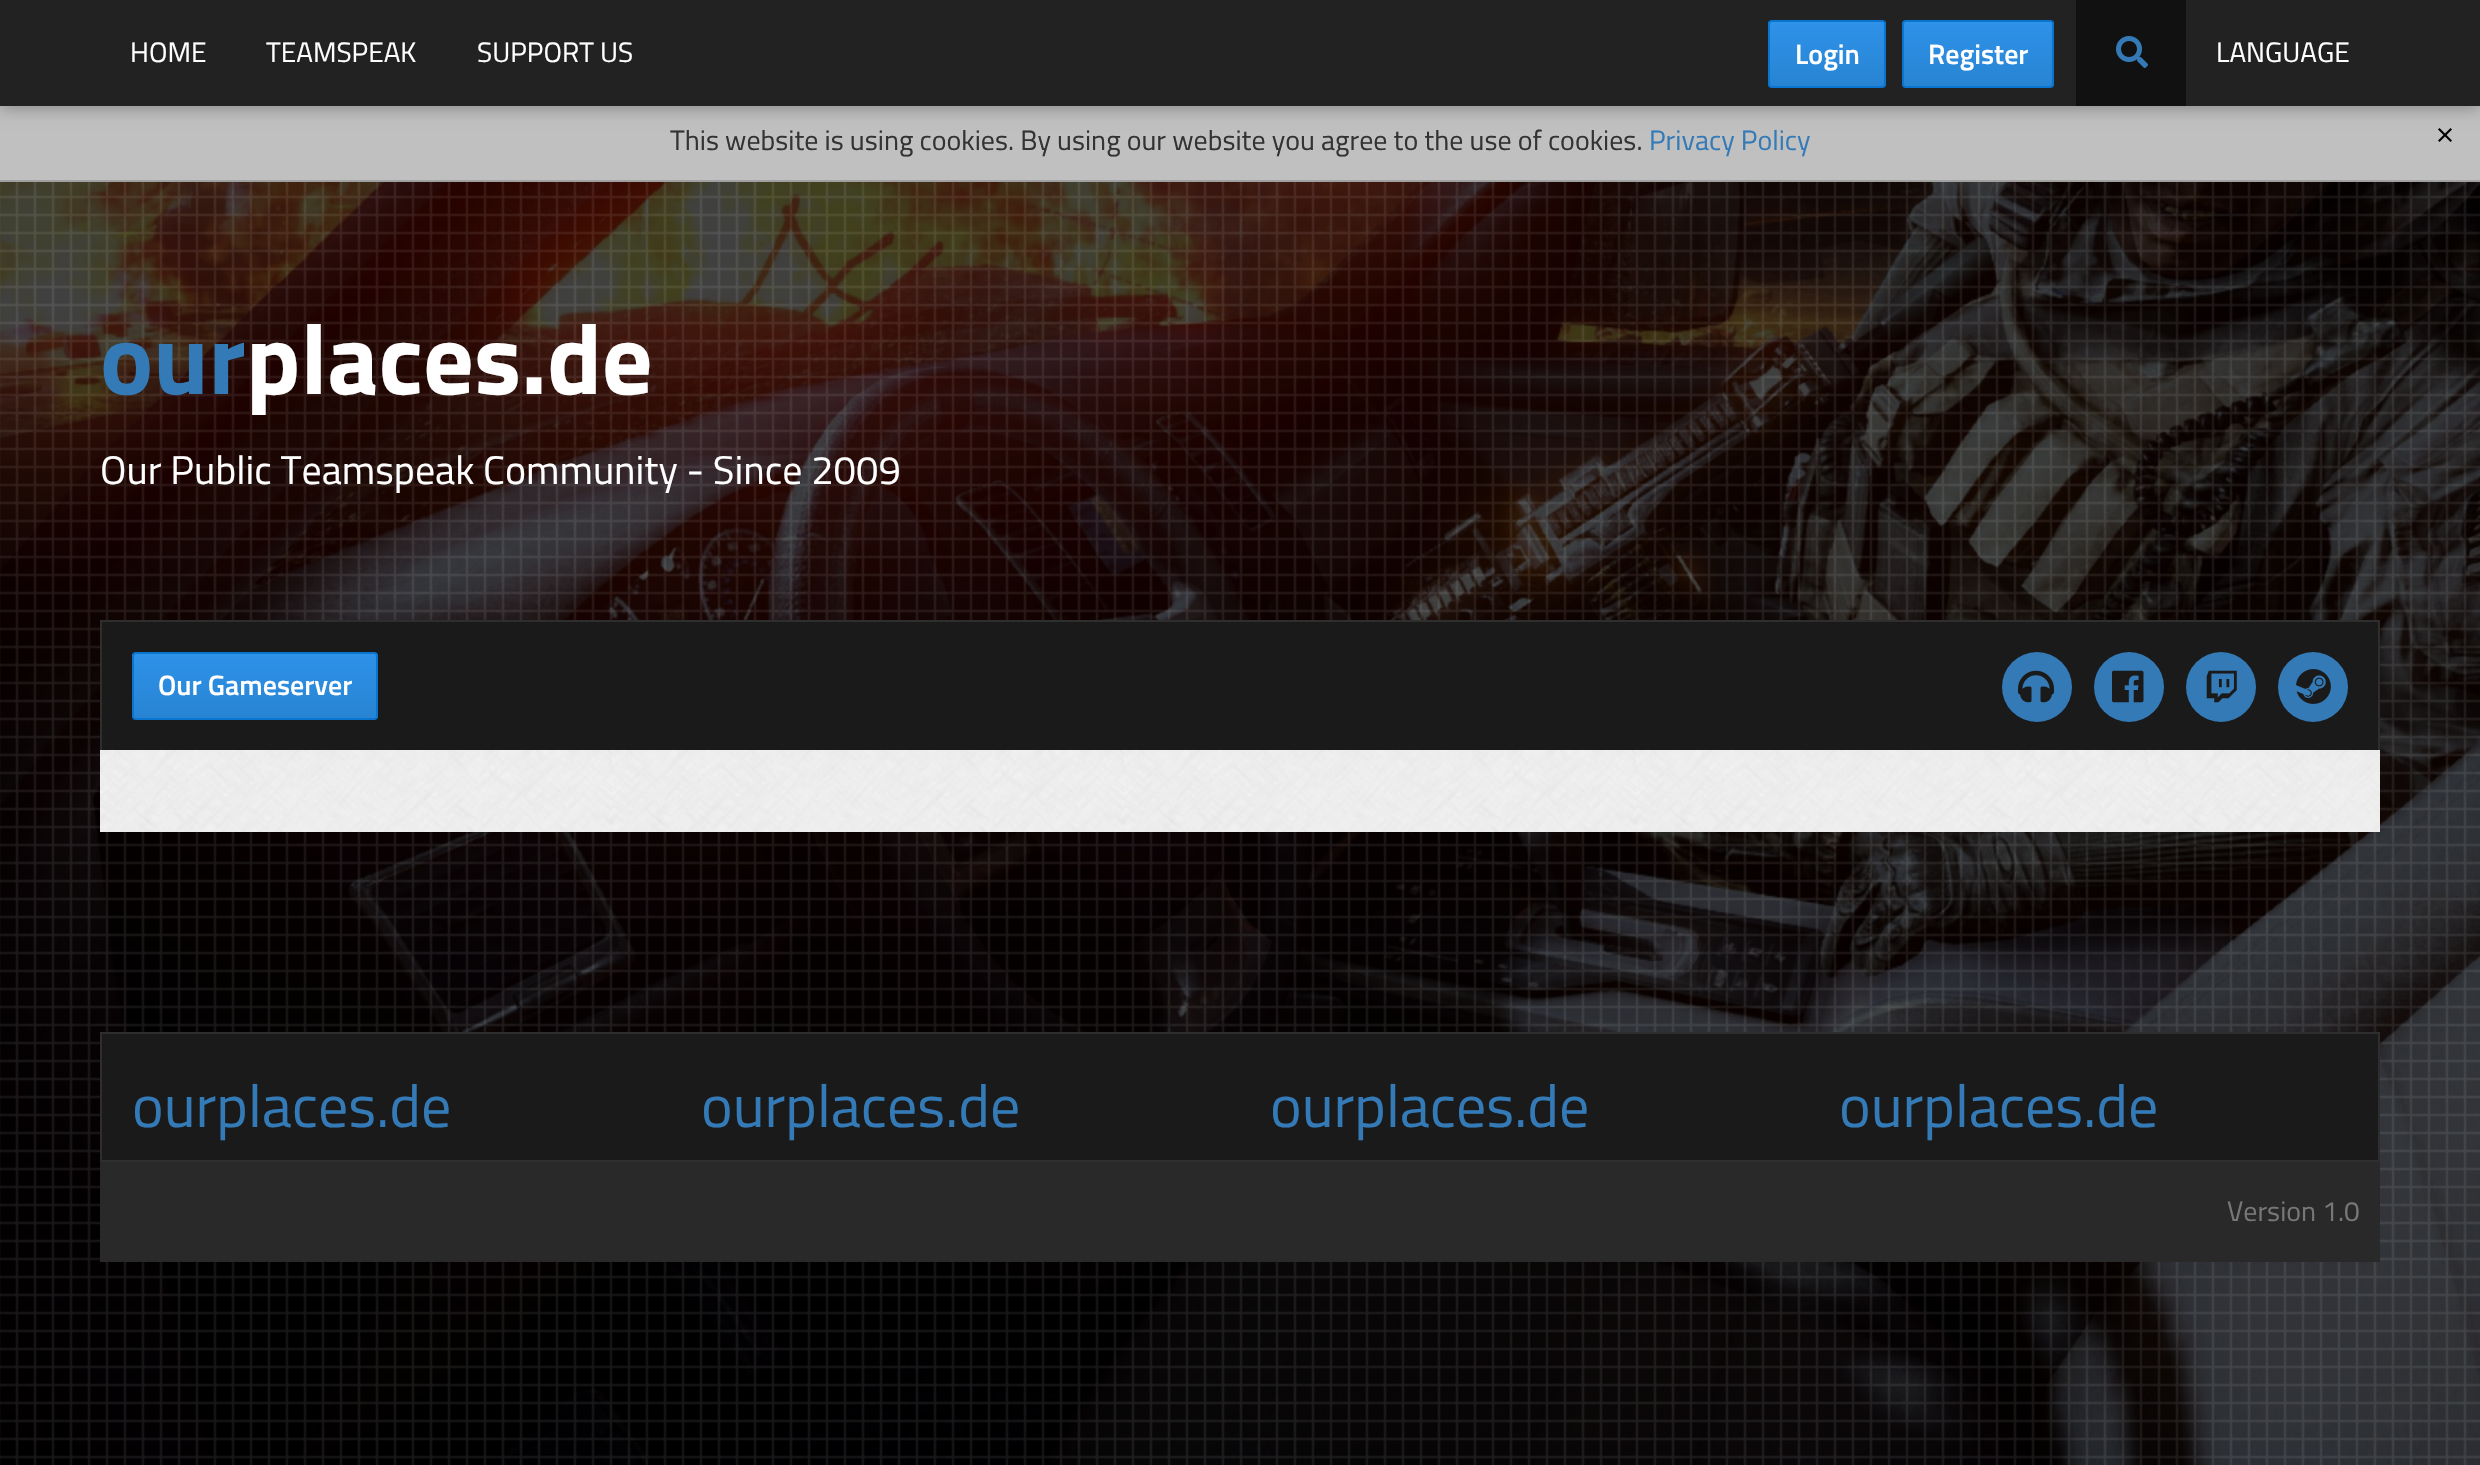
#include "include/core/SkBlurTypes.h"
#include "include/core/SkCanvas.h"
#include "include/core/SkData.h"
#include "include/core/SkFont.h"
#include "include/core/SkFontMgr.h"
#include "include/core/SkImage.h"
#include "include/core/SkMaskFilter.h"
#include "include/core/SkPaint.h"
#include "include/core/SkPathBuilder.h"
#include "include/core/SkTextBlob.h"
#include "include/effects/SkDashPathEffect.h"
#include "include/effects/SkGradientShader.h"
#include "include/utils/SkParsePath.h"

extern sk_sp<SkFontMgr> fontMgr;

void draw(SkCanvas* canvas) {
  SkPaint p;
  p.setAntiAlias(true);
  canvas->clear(SK_ColorBLACK);
  p.setColor(SkColorSetRGB(192, 192, 192));
  canvas->drawRect(SkRect::MakeLTRB(0, 106, 2480, 180), p);
  p.setColor(SK_ColorBLACK);
  canvas->drawPath(SkPathBuilder().moveTo(2438, 129.5f).lineTo(2439.5f, 128).lineTo(2452, 140.5f).lineTo(2450.5f, 142).close().detach(), p);
  canvas->drawPath(SkPathBuilder().moveTo(2450.5f, 128).lineTo(2452, 129.5f).lineTo(2439.5f, 142).lineTo(2438, 140.5f).close().detach(), p);
  p.setColor(SkColorSetARGB(77, 0, 0, 0));
  p.setMaskFilter(SkMaskFilter::MakeBlur(kNormal_SkBlurStyle, 8));
  canvas->drawRect(SkRect::MakeLTRB(0, 2, 2480, 108), p);
  p.setMaskFilter(nullptr);
  p.setColor(SkColorSetRGB(34, 34, 34));
  canvas->drawRect(SkRect::MakeLTRB(0, 0, 2480, 106), p);
  canvas->save();
  canvas->clipPath(SkPathBuilder().moveTo(1772, 20).lineTo(1882, 20).cubicTo(1884, 20, 1886, 22, 1886, 24).lineTo(1886, 84).cubicTo(1886, 86, 1884, 88, 1882, 88).lineTo(1772, 88).cubicTo(1770, 88, 1768, 86, 1768, 84).lineTo(1768, 24).cubicTo(1768, 22, 1770, 20, 1772, 20).close().detach(), true);
  {
    const SkColor colors[] = {SkColorSetRGB(46, 146, 232), SkColorSetRGB(40, 132, 211)};
    const float stops[] = {0, 1};
    const SkPoint ends[] = {{1827, 22}, {1827, 86}};
    p.setShader(SkGradientShader::MakeLinear(ends, colors, stops, 2, SkTileMode::kClamp));
    p.setAlpha(255);
  }
  canvas->drawRect(SkRect::MakeLTRB(1768, 22, 1886, 86), p);
  canvas->restore();
  p.setStyle(SkPaint::kStroke_Style);
  p.setStrokeWidth(2);
  p.setShader(nullptr);
  p.setColor(SkColorSetRGB(10, 117, 209));
  canvas->drawRoundRect(SkRect::MakeLTRB(1769, 21, 1885, 87), 3, 3, p);
  canvas->save();
  canvas->clipPath(SkPathBuilder().moveTo(1906, 20).lineTo(2050, 20).cubicTo(2052, 20, 2054, 22, 2054, 24).lineTo(2054, 84).cubicTo(2054, 86, 2052, 88, 2050, 88).lineTo(1906, 88).cubicTo(1904, 88, 1902, 86, 1902, 84).lineTo(1902, 24).cubicTo(1902, 22, 1904, 20, 1906, 20).close().detach(), true);
  p.setStyle(SkPaint::kFill_Style);
  {
    const SkColor colors[] = {SkColorSetRGB(46, 146, 232), SkColorSetRGB(40, 132, 211)};
    const float stops[] = {0, 1};
    const SkPoint ends[] = {{1978, 22}, {1978, 86}};
    p.setShader(SkGradientShader::MakeLinear(ends, colors, stops, 2, SkTileMode::kClamp));
    p.setAlpha(255);
  }
  canvas->drawRect(SkRect::MakeLTRB(1902, 22, 2054, 86), p);
  canvas->restore();
  p.setStyle(SkPaint::kStroke_Style);
  p.setShader(nullptr);
  p.setColor(SkColorSetRGB(10, 117, 209));
  canvas->drawRoundRect(SkRect::MakeLTRB(1903, 21, 2053, 87), 3, 3, p);
  p.setStyle(SkPaint::kFill_Style);
  p.setColor(SkColorSetRGB(17, 17, 17));
  canvas->drawRect(SkRect::MakeLTRB(2076, 0, 2186, 106), p);
  canvas->drawImageRect(SkImages::DeferredFromEncodedData(SkData::MakeFromFileName("images/1.png")), SkRect::MakeLTRB(2116, 36, 2148, 68), SkSamplingOptions());
  p.setColor(SkColorSetRGB(160, 160, 160));
  canvas->drawRect(SkRect::MakeLTRB(0, 180, 2480, 182), p);
  canvas->drawImageRect(SkImages::DeferredFromEncodedData(SkData::MakeFromFileName("images/2.png")), SkRect::MakeLTRB(0, 182, 2480, 1465), SkSamplingOptions());
  canvas->drawImageRect(SkImages::DeferredFromEncodedData(SkData::MakeFromFileName("images/3.png")), SkRect::MakeLTRB(0, 182, 2480, 1465), SkSamplingOptions());
  p.setColor(SkColorSetRGB(26, 26, 26));
  canvas->drawRect(SkRect::MakeLTRB(102, 622, 2378, 750), p);
  p.setColor(SkColorSetRGB(46, 46, 46));
  canvas->drawRect(SkRect::MakeLTRB(100, 620, 2380, 622), p);
  canvas->drawRect(SkRect::MakeLTRB(2378, 620, 2380, 750), p);
  canvas->drawRect(SkRect::MakeLTRB(100, 620, 102, 750), p);
  canvas->save();
  canvas->clipPath(SkPathBuilder().moveTo(136, 652).lineTo(374, 652).cubicTo(376, 652, 378, 654, 378, 656).lineTo(378, 716).cubicTo(378, 718, 376, 720, 374, 720).lineTo(136, 720).cubicTo(134, 720, 132, 718, 132, 716).lineTo(132, 656).cubicTo(132, 654, 134, 652, 136, 652).close().detach(), true);
  {
    const SkColor colors[] = {SkColorSetRGB(46, 146, 232), SkColorSetRGB(40, 132, 211)};
    const float stops[] = {0, 1};
    const SkPoint ends[] = {{255, 654}, {255, 718}};
    p.setShader(SkGradientShader::MakeLinear(ends, colors, stops, 2, SkTileMode::kClamp));
    p.setAlpha(255);
  }
  canvas->drawRect(SkRect::MakeLTRB(132, 654, 378, 718), p);
  canvas->restore();
  p.setStyle(SkPaint::kStroke_Style);
  p.setShader(nullptr);
  p.setColor(SkColorSetRGB(10, 117, 209));
  canvas->drawRoundRect(SkRect::MakeLTRB(133, 653, 377, 719), 3, 3, p);
  p.setStyle(SkPaint::kFill_Style);
  p.setColor(SkColorSetRGB(51, 122, 183));
  canvas->drawCircle(2037, 687, 35, p);
  canvas->drawImageRect(SkImages::DeferredFromEncodedData(SkData::MakeFromFileName("images/4.png")), SkRect::MakeLTRB(2018, 670, 2054, 703), SkSamplingOptions());
  canvas->drawCircle(2129, 687, 35, p);
  canvas->drawImageRect(SkImages::DeferredFromEncodedData(SkData::MakeFromFileName("images/5.png")), SkRect::MakeLTRB(2112, 670, 2144, 703), SkSamplingOptions());
  canvas->drawCircle(2221, 687, 35, p);
  canvas->drawImageRect(SkImages::DeferredFromEncodedData(SkData::MakeFromFileName("images/6.png")), SkRect::MakeLTRB(2206, 670, 2237, 703), SkSamplingOptions());
  canvas->drawCircle(2313, 687, 35, p);
  canvas->drawImageRect(SkImages::DeferredFromEncodedData(SkData::MakeFromFileName("images/7.png")), SkRect::MakeLTRB(2296, 669, 2331, 704), SkSamplingOptions());
  canvas->drawImageRect(SkImages::DeferredFromEncodedData(SkData::MakeFromFileName("images/8.png")), SkRect::MakeLTRB(100, 750, 2380, 832), SkSamplingOptions());
  p.setColor(SkColorSetRGB(26, 26, 26));
  canvas->drawRect(SkRect::MakeLTRB(101, 1033, 2379, 1161), p);
  p.setStyle(SkPaint::kStroke_Style);
  p.setColor(SkColorSetRGB(46, 46, 46));
  canvas->drawRect(SkRect::MakeLTRB(101, 1033, 2379, 1161), p);
  p.setStyle(SkPaint::kFill_Style);
  p.setColor(SkColorSetRGB(41, 41, 41));
  canvas->drawRect(SkRect::MakeLTRB(100, 1162, 2380, 1262), p);
  SkFont font1(fontMgr->matchFamilyStyle("Titillium Web", SkFontStyle::Normal()), 28);
  font1.setSubpixel(true);
  p.setColor(SK_ColorWHITE);
  canvas->drawString("HOME", 130, 62, font1, p);
  canvas->drawString("TEAMSPEAK", 266, 62, font1, p);
  canvas->drawString("SUPPORT US", 477, 62, font1, p);
  SkFont font2(fontMgr->matchFamilyStyle("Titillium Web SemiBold", SkFontStyle(600, SkFontStyle::kNormal_Width, SkFontStyle::kUpright_Slant)), 28);
  font2.setSubpixel(true);
  canvas->drawString("Login", 1795, 64, font2, p);
  canvas->drawString("Register", 1928, 64, font2, p);
  canvas->drawString("LANGUAGE", 2216, 62, font1, p);
  p.setColor(SkColorSetRGB(51, 51, 51));
  canvas->drawString("This website is using cookies. By using our website you agree to the use of cookies.", 670, 150, font1, p);
  p.setColor(SkColorSetRGB(51, 122, 183));
  canvas->drawString("Privacy Policy", 1649, 150, font1, p);
  SkFont font3(fontMgr->matchFamilyStyle("Titillium Web", SkFontStyle::Bold()), 100);
  font3.setSubpixel(true);
  canvas->drawString("our", 100, 394, font3, p);
  p.setColor(SK_ColorWHITE);
  canvas->drawString("places.de", 246, 394, font3, p);
  SkFont font4(fontMgr->matchFamilyStyle("Titillium Web", SkFontStyle::Normal()), 40);
  font4.setSubpixel(true);
  canvas->drawString("Our Public Teamspeak Community - Since 2009", 100, 484, font4, p);
  canvas->drawString("Our Gameserver", 158, 695, font2, p);
  SkFont font5(fontMgr->matchFamilyStyle("Titillium Web", SkFontStyle::Normal()), 60);
  font5.setSubpixel(true);
  p.setColor(SkColorSetRGB(51, 122, 183));
  canvas->drawString("ourplaces.de", 132, 1127, font5, p);
  canvas->drawString("ourplaces.de", 701, 1127, font5, p);
  canvas->drawString("ourplaces.de", 1270, 1127, font5, p);
  canvas->drawString("ourplaces.de", 1839, 1127, font5, p);
  p.setColor(SkColorSetRGB(119, 119, 119));
  canvas->drawString("Version 1.0", 2227, 1221, font1, p);
}
